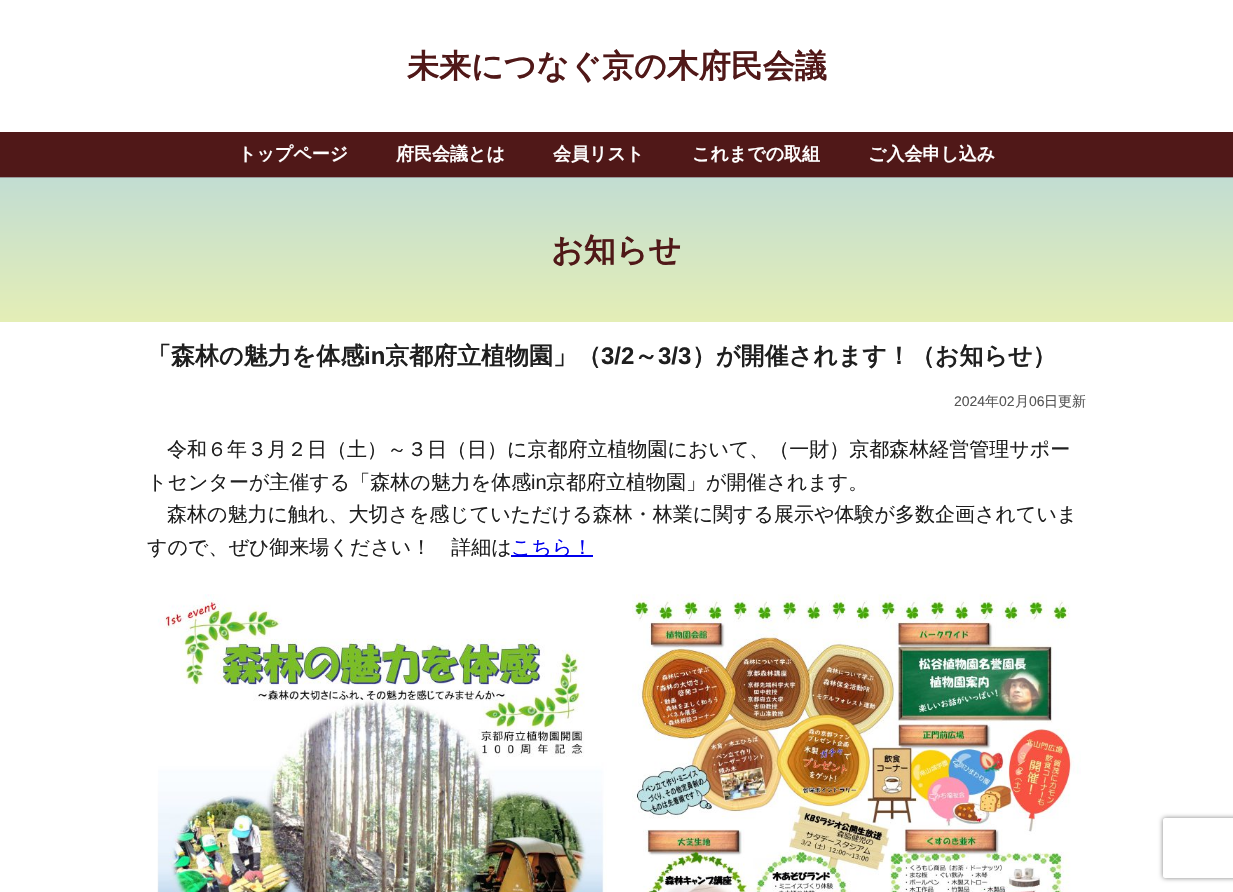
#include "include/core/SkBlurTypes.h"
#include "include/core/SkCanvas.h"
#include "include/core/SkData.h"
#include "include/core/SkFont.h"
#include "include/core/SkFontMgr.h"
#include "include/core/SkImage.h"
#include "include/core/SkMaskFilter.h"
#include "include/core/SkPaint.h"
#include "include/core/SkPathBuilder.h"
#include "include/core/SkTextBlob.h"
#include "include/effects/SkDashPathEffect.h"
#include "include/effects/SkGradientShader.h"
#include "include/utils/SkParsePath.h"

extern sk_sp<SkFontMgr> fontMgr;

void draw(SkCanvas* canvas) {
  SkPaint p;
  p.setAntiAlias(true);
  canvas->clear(SK_ColorWHITE);
  p.setColor(SkColorSetRGB(80, 24, 24));
  canvas->drawRect(SkRect::MakeLTRB(0, 132, 1233, 177), p);
  {
    const SkColor colors[] = {SkColorSetRGB(194, 221, 210), SkColorSetRGB(228, 238, 182)};
    const float stops[] = {0, 1};
    const SkPoint ends[] = {{617, 178}, {617, 322}};
    p.setShader(SkGradientShader::MakeLinear(ends, colors, stops, 2, SkTileMode::kClamp));
    p.setAlpha(255);
  }
  canvas->drawRect(SkRect::MakeLTRB(0, 178, 1233, 322), p);
  p.setShader(nullptr);
  p.setColor(SkColorSetRGB(153, 153, 153));
  canvas->drawRect(SkRect::MakeLTRB(0, 177, 1233, 178), p);
  p.setColor(SkColorSetRGB(0, 0, 238));
  canvas->drawRect(SkRect::MakeLTRB(511, 555, 593, 557), p);
  canvas->drawImageRect(SkImages::DeferredFromEncodedData(SkData::MakeFromFileName("images/1.png")), SkRect::MakeLTRB(157, 594, 607, 892), SkSamplingOptions());
  canvas->drawImageRect(SkImages::DeferredFromEncodedData(SkData::MakeFromFileName("images/2.png")), SkRect::MakeLTRB(632, 594, 1081, 892), SkSamplingOptions());
  canvas->save();
  canvas->clipPath(SkPathBuilder(SkPathFillType::kEvenOdd).moveTo(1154, 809).lineTo(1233, 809).lineTo(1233, 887).lineTo(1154, 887).close().moveTo(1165, 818).lineTo(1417, 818).cubicTo(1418, 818, 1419, 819, 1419, 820).lineTo(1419, 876).cubicTo(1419, 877, 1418, 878, 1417, 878).lineTo(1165, 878).cubicTo(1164, 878, 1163, 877, 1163, 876).lineTo(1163, 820).cubicTo(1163, 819, 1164, 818, 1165, 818).close().detach(), true);
  p.setColor(SkColorSetRGB(128, 128, 128));
  p.setMaskFilter(SkMaskFilter::MakeBlur(kNormal_SkBlurStyle, 2.5f));
  canvas->drawRoundRect(SkRect::MakeLTRB(1163, 818, 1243, 878), 2, 2, p);
  p.setMaskFilter(nullptr);
  canvas->restore();
  SkFont font1(fontMgr->matchFamilyStyle("WenQuanYi Zen Hei", SkFontStyle::Bold()), 32);
  font1.setSubpixel(true);
  p.setColor(SkColorSetRGB(80, 24, 24));
  canvas->drawString("未来につなぐ京の木府民会議", 407, 77, font1, p);
  SkFont font2(fontMgr->matchFamilyStyle("WenQuanYi Zen Hei", SkFontStyle::Bold()), 18);
  font2.setSubpixel(true);
  p.setColor(SK_ColorWHITE);
  canvas->drawString("トップページ", 238, 160, font2, p);
  canvas->drawString("府民会議とは", 396, 160, font2, p);
  canvas->drawString("会員リスト", 553, 160, font2, p);
  canvas->drawString("これまでの取組", 692, 160, font2, p);
  canvas->drawString("ご入会申し込み", 868, 160, font2, p);
  p.setColor(SkColorSetRGB(80, 24, 24));
  canvas->drawString("お知らせ", 551, 261, font1, p);
  SkFont font3(fontMgr->matchFamilyStyle("WenQuanYi Zen Hei", SkFontStyle::Bold()), 24);
  font3.setSubpixel(true);
  p.setColor(SkColorSetRGB(31, 31, 31));
  canvas->drawString("「森林の魅力を体感", 147, 364, font3, p);
  SkFont font4(fontMgr->matchFamilyStyle("Liberation Sans", SkFontStyle::Bold()), 24);
  font4.setSubpixel(true);
  canvas->drawString("in", 364, 364, font4, p);
  canvas->drawString("京都府立植物園」（", 385, 364, font3, p);
  canvas->drawString("3/2", 601, 364, font4, p);
  canvas->drawString("～", 634, 364, font3, p);
  canvas->drawString("3/3", 658, 364, font4, p);
  canvas->drawString("）が開催されます！（お知らせ）", 692, 364, font3, p);
  SkFont font5(fontMgr->matchFamilyStyle("Liberation Sans", SkFontStyle::Normal()), 14);
  font5.setSubpixel(true);
  p.setColor(SkColorSetRGB(85, 85, 85));
  canvas->drawString("2024", 954, 406, font5, p);
  SkFont font6(fontMgr->matchFamilyStyle("WenQuanYi Zen Hei", SkFontStyle(500, SkFontStyle::kNormal_Width, SkFontStyle::kUpright_Slant)), 14);
  font6.setSubpixel(true);
  canvas->drawString("年", 985, 406, font6, p);
  canvas->drawString("02", 999, 406, font5, p);
  canvas->drawString("月", 1015, 406, font6, p);
  canvas->drawString("06", 1029, 406, font5, p);
  canvas->drawString("日更新", 1044, 406, font6, p);
  SkFont font7(fontMgr->matchFamilyStyle("WenQuanYi Zen Hei", SkFontStyle(500, SkFontStyle::kNormal_Width, SkFontStyle::kUpright_Slant)), 20);
  font7.setSubpixel(true);
  p.setColor(SkColorSetRGB(31, 31, 31));
  canvas->drawString("令和６年３月２日（土）～３日（日）に京都府立植物園において、（一財）京都森林経営管理サポー", 167, 456, font7, p);
  canvas->drawString("トセンターが主催する「森林の魅力を体感", 147, 489, font7, p);
  SkFont font8(fontMgr->matchFamilyStyle("Liberation Sans", SkFontStyle::Normal()), 20);
  font8.setSubpixel(true);
  canvas->drawString("in", 531, 489, font8, p);
  canvas->drawString("京都府立植物園」が開催されます。", 546, 489, font7, p);
  canvas->drawString("森林の魅力に触れ、大切さを感じていただける森林・林業に関する展示や体験が多数企画されていま", 167, 521, font7, p);
  canvas->drawString("すので、ぜひ御来場ください！　詳細は", 147, 554, font7, p);
  p.setColor(SkColorSetRGB(0, 0, 238));
  canvas->drawString("こちら！", 511, 554, font7, p);
}
